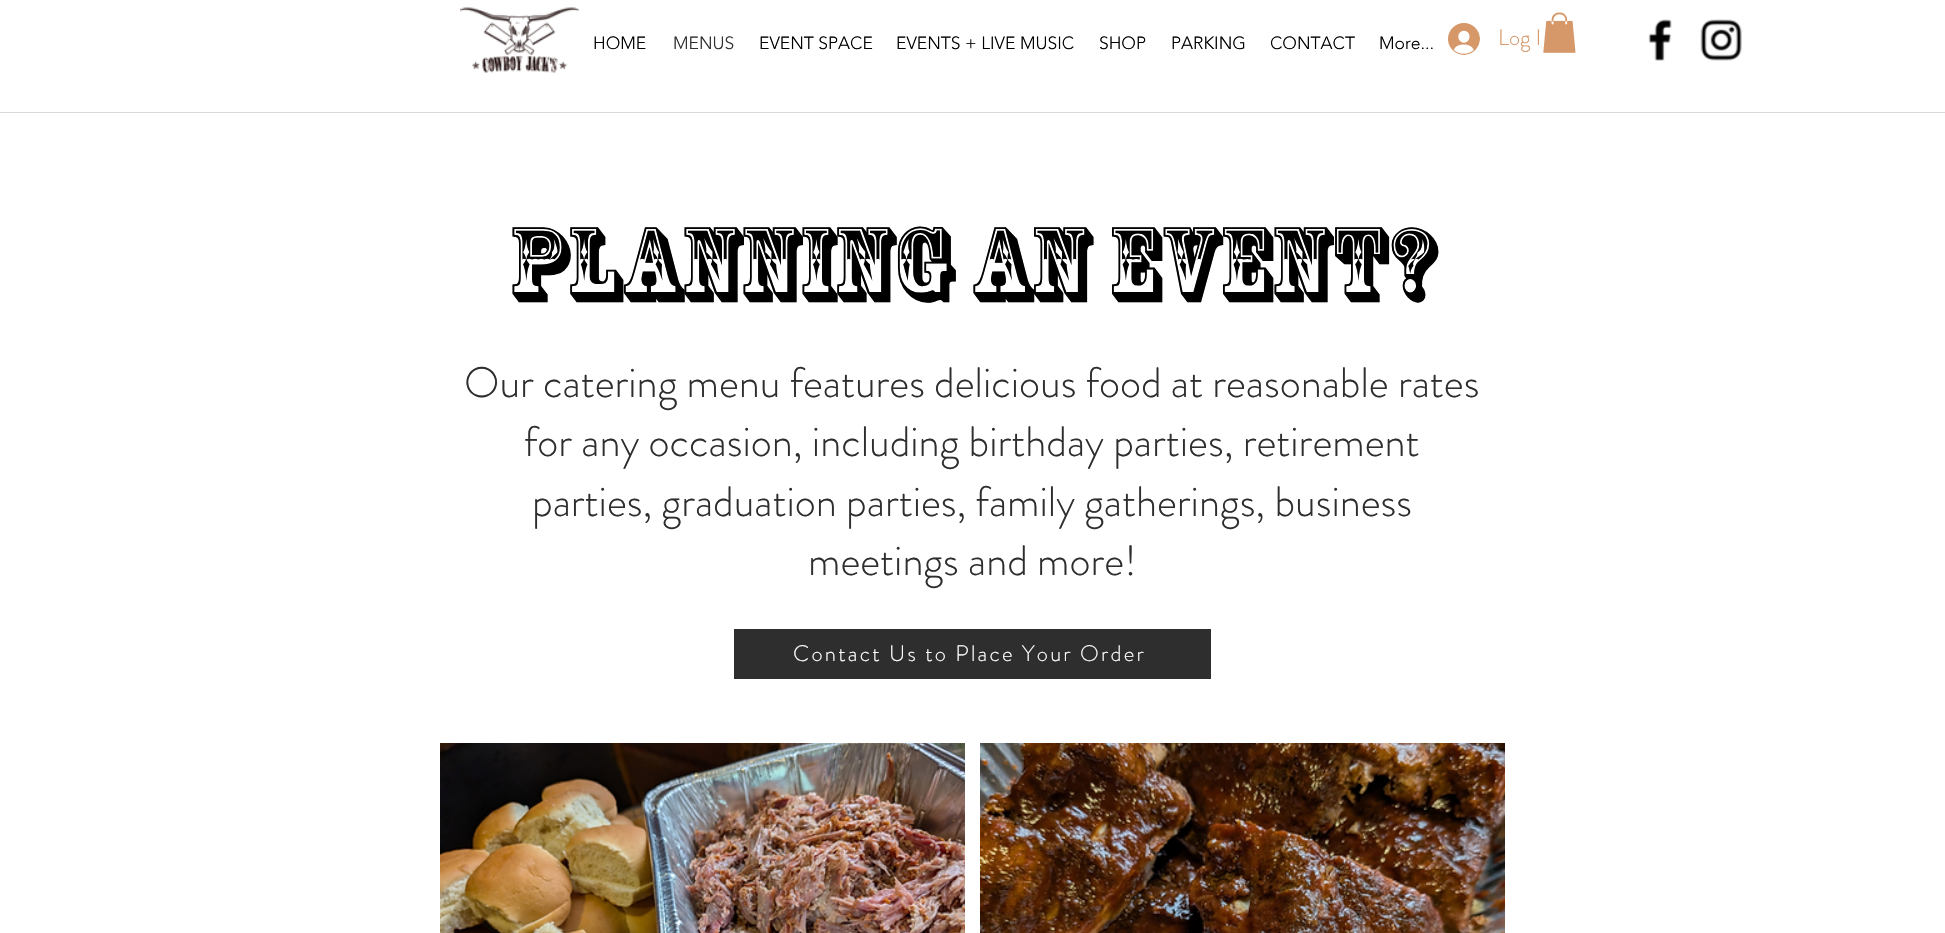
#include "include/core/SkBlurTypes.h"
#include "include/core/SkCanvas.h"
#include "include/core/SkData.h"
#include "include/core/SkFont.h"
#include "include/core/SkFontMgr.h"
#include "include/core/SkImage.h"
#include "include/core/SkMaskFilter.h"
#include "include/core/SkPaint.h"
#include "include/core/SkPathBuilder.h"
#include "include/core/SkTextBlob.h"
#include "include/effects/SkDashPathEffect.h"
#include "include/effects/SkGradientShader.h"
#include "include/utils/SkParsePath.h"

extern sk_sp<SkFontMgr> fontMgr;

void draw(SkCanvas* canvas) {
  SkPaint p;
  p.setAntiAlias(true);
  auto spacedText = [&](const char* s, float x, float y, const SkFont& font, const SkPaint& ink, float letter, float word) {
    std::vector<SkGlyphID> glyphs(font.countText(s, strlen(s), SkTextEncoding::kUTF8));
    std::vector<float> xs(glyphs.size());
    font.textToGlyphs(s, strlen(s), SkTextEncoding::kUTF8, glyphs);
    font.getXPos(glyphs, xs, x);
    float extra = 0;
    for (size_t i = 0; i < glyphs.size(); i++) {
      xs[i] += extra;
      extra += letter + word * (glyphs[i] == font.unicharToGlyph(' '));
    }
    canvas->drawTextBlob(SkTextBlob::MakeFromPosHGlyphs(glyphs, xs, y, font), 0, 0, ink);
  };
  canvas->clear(SK_ColorWHITE);
  p.setStyle(SkPaint::kStroke_Style);
  p.setStrokeWidth(1);
  p.setColor(SkColorSetRGB(217, 217, 217));
  canvas->drawRect(SkRect::MakeLTRB(-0.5f, -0.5f, 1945.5f, 112.5f), p);
  canvas->drawImageRect(SkImages::DeferredFromEncodedData(SkData::MakeFromFileName("images/1.png")), SkRect::MakeLTRB(460, 7, 579, 73), SkSamplingOptions());
  canvas->drawImageRect(SkImages::DeferredFromEncodedData(SkData::MakeFromFileName("images/2.png")), SkRect::MakeLTRB(1448, 23, 1480, 55), SkSamplingOptions());
  canvas->drawImageRect(SkImages::DeferredFromEncodedData(SkData::MakeFromFileName("images/3.png")), SkRect::MakeLTRB(1543, 12, 1576, 53), SkSamplingOptions());
  canvas->drawImageRect(SkImages::DeferredFromEncodedData(SkData::MakeFromFileName("images/4.png")), SkRect::MakeLTRB(1648, 19, 1672, 61), SkSamplingOptions());
  canvas->drawImageRect(SkImages::DeferredFromEncodedData(SkData::MakeFromFileName("images/5.png")), SkRect::MakeLTRB(1700, 19, 1742, 61), SkSamplingOptions());
  p.setStyle(SkPaint::kFill_Style);
  p.setColor(SkColorSetRGB(47, 46, 46));
  canvas->drawRect(SkRect::MakeLTRB(734, 629, 1211, 679), p);
  canvas->drawImageRect(SkImages::DeferredFromEncodedData(SkData::MakeFromFileName("images/6.png")), SkRect::MakeLTRB(440, 743, 965, 933), SkSamplingOptions());
  canvas->drawImageRect(SkImages::DeferredFromEncodedData(SkData::MakeFromFileName("images/7.png")), SkRect::MakeLTRB(980, 743, 1505, 933), SkSamplingOptions());
  SkFont font1(fontMgr->matchFamilyStyle("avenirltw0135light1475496", SkFontStyle(300, SkFontStyle::kNormal_Width, SkFontStyle::kUpright_Slant)), 17.5f);
  font1.setSubpixel(true);
  p.setColor(SK_ColorBLACK);
  canvas->drawString("HOME", 593, 49, font1, p);
  p.setColor(SkColorSetRGB(47, 46, 46));
  canvas->drawString("MENUS", 673, 49, font1, p);
  p.setColor(SK_ColorBLACK);
  canvas->drawString("EVENT SPACE", 759, 49, font1, p);
  canvas->drawString("EVENTS + LIVE MUSIC", 896, 49, font1, p);
  canvas->drawString("SHOP", 1099, 49, font1, p);
  canvas->drawString("PARKING", 1171, 49, font1, p);
  canvas->drawString("CONTACT", 1270, 49, font1, p);
  canvas->drawString("More...", 1379, 49, font1, p);
  SkFont font2(fontMgr->matchFamilyStyle("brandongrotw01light", SkFontStyle(300, SkFontStyle::kNormal_Width, SkFontStyle::kUpright_Slant)), 22.5f);
  font2.setSubpixel(true);
  p.setColor(SkColorSetRGB(214, 152, 105));
  canvas->drawString("Log I", 1498, 45, font2, p);
  SkFont font3(fontMgr->matchFamilyStyle("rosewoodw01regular", SkFontStyle::Normal()), 100);
  font3.setSubpixel(true);
  p.setColor(SK_ColorBLACK);
  canvas->drawString("Planning an Event?", 509, 292, font3, p);
  SkFont font4(fontMgr->matchFamilyStyle("brandongrotw01light", SkFontStyle(300, SkFontStyle::kNormal_Width, SkFontStyle::kUpright_Slant)), 42.5f);
  font4.setSubpixel(true);
  p.setColor(SkColorSetRGB(47, 46, 46));
  canvas->drawString("Our catering menu features delicious food at reasonable rates", 464, 397, font4, p);
  canvas->drawString("for any occasion, including birthday parties, retirement", 524, 456, font4, p);
  canvas->drawString("parties, graduation parties, family gatherings, business", 532, 516, font4, p);
  canvas->drawString("meetings and more!", 808, 575, font4, p);
  p.setColor(SK_ColorWHITE);
  spacedText("Contact Us to Place Your Order", 793, 661, font2, p, 2.25f, 0);
}
